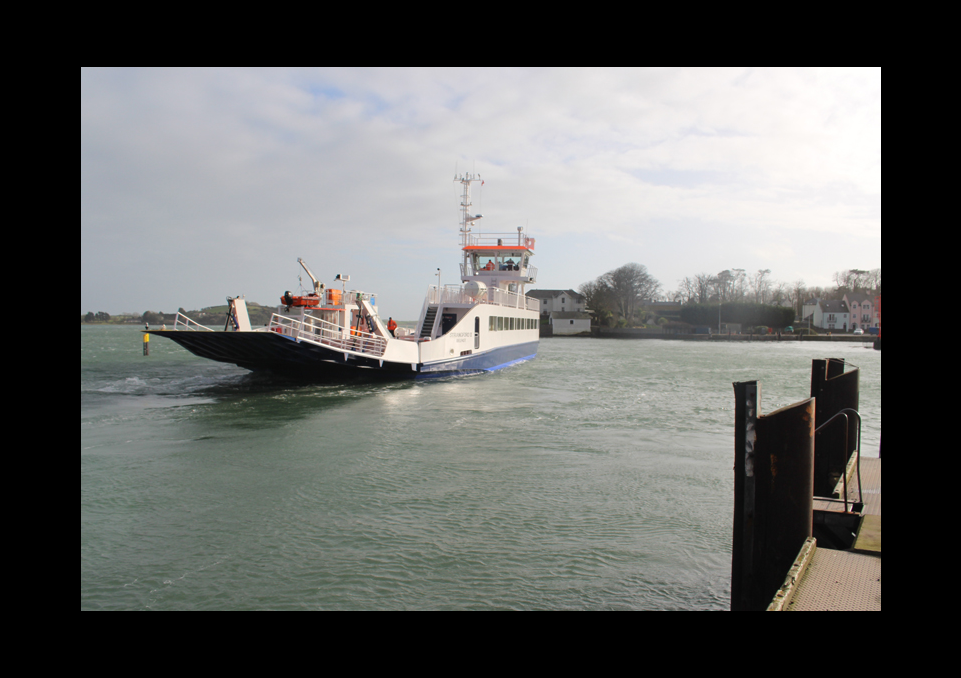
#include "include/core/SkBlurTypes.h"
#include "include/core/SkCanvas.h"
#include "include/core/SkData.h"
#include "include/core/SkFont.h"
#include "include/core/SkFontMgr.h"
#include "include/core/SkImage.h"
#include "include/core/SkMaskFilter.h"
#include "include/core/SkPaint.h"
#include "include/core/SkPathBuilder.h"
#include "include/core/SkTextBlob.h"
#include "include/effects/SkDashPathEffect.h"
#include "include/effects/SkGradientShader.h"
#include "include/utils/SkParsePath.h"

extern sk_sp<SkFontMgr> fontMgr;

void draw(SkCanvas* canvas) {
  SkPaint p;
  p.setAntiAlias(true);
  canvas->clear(SK_ColorBLACK);
  canvas->drawImageRect(SkImages::DeferredFromEncodedData(SkData::MakeFromFileName("images/1.png")), SkRect::MakeLTRB(81, 67, 881, 611), SkSamplingOptions());
}
